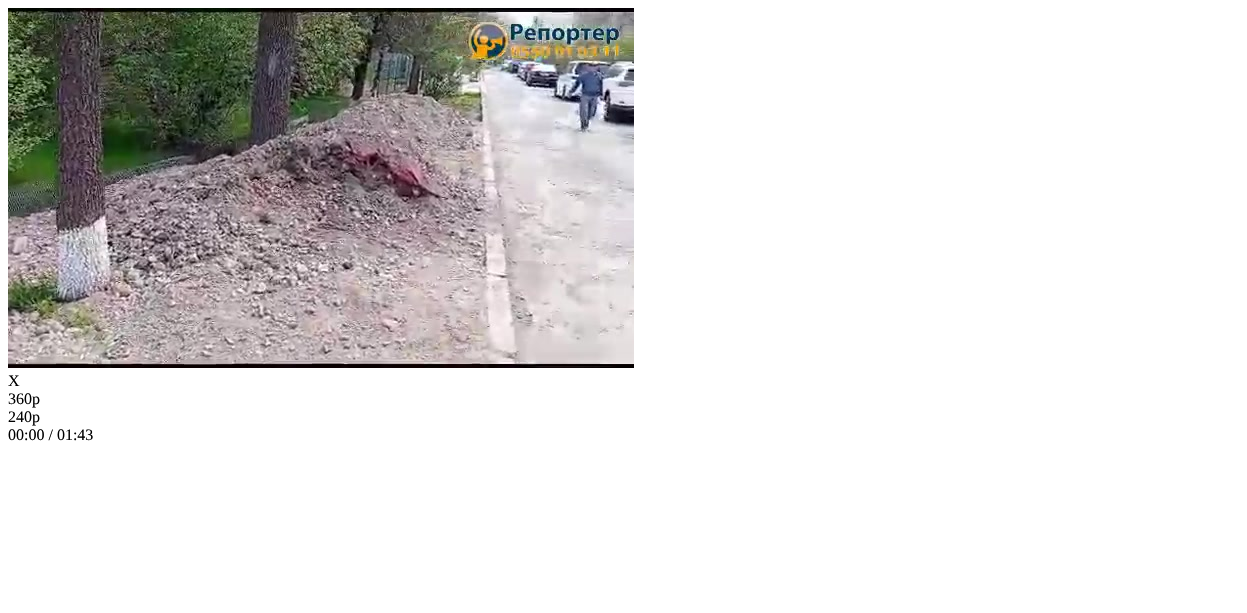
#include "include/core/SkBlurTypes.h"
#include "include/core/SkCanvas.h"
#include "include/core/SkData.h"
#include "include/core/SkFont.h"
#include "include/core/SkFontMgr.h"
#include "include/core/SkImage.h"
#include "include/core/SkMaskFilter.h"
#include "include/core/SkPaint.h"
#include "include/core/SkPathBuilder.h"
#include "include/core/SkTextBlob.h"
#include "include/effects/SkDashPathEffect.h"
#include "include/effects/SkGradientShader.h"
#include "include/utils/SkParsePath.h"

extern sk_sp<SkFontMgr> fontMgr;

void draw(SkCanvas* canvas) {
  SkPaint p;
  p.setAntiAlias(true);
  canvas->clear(SK_ColorWHITE);
  canvas->drawImageRect(SkImages::DeferredFromEncodedData(SkData::MakeFromFileName("images/1.png")), SkRect::MakeLTRB(8, 8, 634, 368), SkSamplingOptions());
  SkFont font1(fontMgr->matchFamilyStyle("Liberation Serif", SkFontStyle::Normal()), 16);
  font1.setSubpixel(true);
  p.setColor(SK_ColorBLACK);
  canvas->drawString("X", 8, 386, font1, p);
  canvas->drawString("360p", 8, 404, font1, p);
  canvas->drawString("240p", 8, 422, font1, p);
  canvas->drawString("00:00 / 01:43", 8, 440, font1, p);
}
